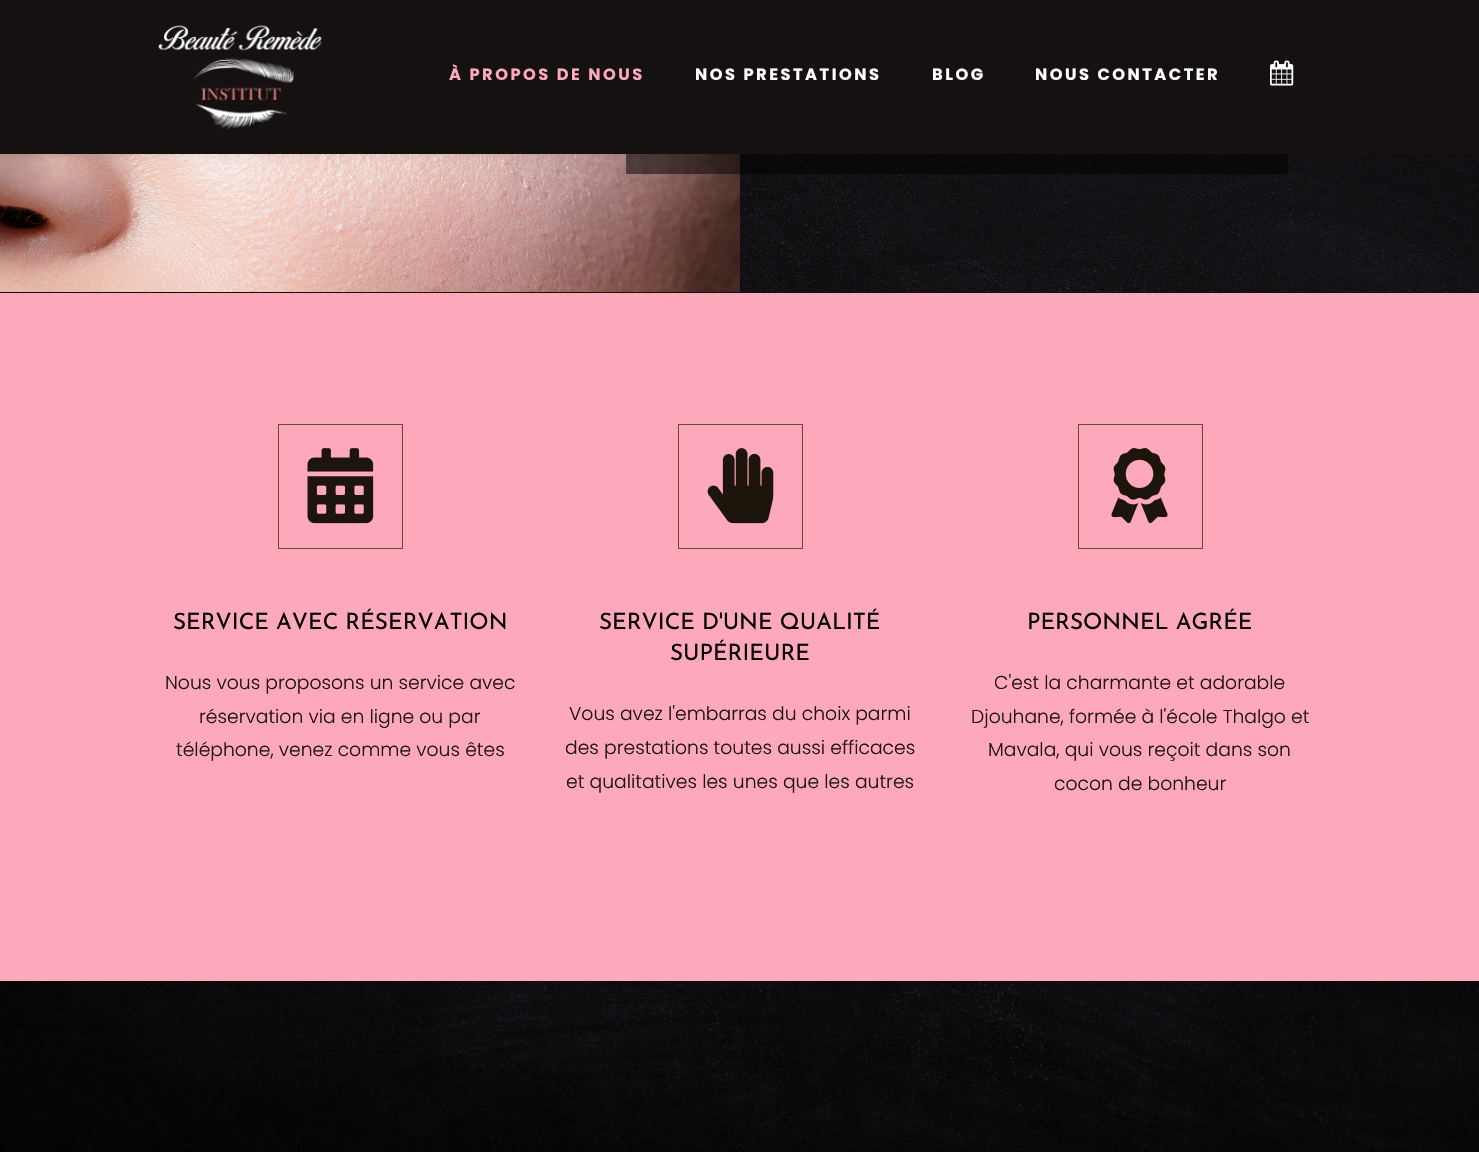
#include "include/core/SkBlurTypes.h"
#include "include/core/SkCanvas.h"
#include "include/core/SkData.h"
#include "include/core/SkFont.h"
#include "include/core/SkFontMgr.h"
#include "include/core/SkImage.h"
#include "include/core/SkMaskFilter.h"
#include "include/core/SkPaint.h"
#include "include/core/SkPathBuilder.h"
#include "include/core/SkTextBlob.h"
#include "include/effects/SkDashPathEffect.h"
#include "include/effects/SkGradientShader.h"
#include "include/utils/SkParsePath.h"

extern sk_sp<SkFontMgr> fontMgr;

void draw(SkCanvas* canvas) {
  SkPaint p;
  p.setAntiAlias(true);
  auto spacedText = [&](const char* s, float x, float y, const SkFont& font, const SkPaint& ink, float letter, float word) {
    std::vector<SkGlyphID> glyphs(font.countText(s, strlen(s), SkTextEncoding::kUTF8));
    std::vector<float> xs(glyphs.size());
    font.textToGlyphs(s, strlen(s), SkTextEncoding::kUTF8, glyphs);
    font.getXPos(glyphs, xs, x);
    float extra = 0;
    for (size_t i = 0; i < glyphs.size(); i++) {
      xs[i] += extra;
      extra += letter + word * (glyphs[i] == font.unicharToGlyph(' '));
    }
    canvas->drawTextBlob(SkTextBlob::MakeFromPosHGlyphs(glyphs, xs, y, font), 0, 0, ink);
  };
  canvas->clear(SK_ColorWHITE);
  canvas->drawImageRect(SkImages::DeferredFromEncodedData(SkData::MakeFromFileName("images/1.png")), SkRect::MakeLTRB(0, 154, 1479, 1152), SkSamplingOptions());
  canvas->drawImageRect(SkImages::DeferredFromEncodedData(SkData::MakeFromFileName("images/4.png")), SkRect::MakeLTRB(0, 154, 740, 292), SkSamplingOptions());
  p.setColor(SkColorSetARGB(128, 0, 0, 0));
  canvas->drawRect(SkRect::MakeLTRB(626, 154, 1288, 174), p);
  p.setColor(SkColorSetARGB(26, 0, 0, 0));
  p.setMaskFilter(SkMaskFilter::MakeBlur(kNormal_SkBlurStyle, 6));
  canvas->drawRect(SkRect::MakeLTRB(0, 0, 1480, 154), p);
  p.setMaskFilter(nullptr);
  p.setColor(SkColorSetRGB(21, 17, 17));
  canvas->drawRect(SkRect::MakeLTRB(0, 0, 1479, 154), p);
  canvas->drawImageRect(SkImages::DeferredFromEncodedData(SkData::MakeFromFileName("images/2.png")), SkRect::MakeLTRB(158, 25, 322, 129), SkSamplingOptions());
  canvas->drawImageRect(SkImages::DeferredFromEncodedData(SkData::MakeFromFileName("images/3.png")), SkRect::MakeLTRB(1270, 60, 1294, 86), SkSamplingOptions());
  p.setColor(SkColorSetRGB(253, 168, 187));
  canvas->drawRect(SkRect::MakeLTRB(0, 293, 1479, 981), p);
  p.setStyle(SkPaint::kStroke_Style);
  p.setStrokeWidth(1);
  p.setColor(SkColorSetRGB(103, 76, 39));
  canvas->drawRect(SkRect::MakeLTRB(278.5f, 424.5f, 402.5f, 548.5f), p);
  canvas->drawImageRect(SkImages::DeferredFromEncodedData(SkData::MakeFromFileName("images/5.png")), SkRect::MakeLTRB(307, 448, 374, 524), SkSamplingOptions());
  canvas->drawRect(SkRect::MakeLTRB(678.5f, 424.5f, 802.5f, 548.5f), p);
  canvas->drawImageRect(SkImages::DeferredFromEncodedData(SkData::MakeFromFileName("images/6.png")), SkRect::MakeLTRB(707, 448, 774, 524), SkSamplingOptions());
  canvas->drawRect(SkRect::MakeLTRB(1078.5f, 424.5f, 1202.5f, 548.5f), p);
  canvas->drawImageRect(SkImages::DeferredFromEncodedData(SkData::MakeFromFileName("images/7.png")), SkRect::MakeLTRB(1111, 448, 1168, 524), SkSamplingOptions());
  SkFont font1(fontMgr->matchFamilyStyle("Poppins", SkFontStyle::Bold()), 16.25f);
  font1.setSubpixel(true);
  p.setStyle(SkPaint::kFill_Style);
  p.setColor(SkColorSetRGB(253, 168, 187));
  spacedText("À PROPOS DE NOUS", 449, 80, font1, p, 2.5f, 0);
  p.setColor(SK_ColorWHITE);
  spacedText("NOS PRESTATIONS", 695, 80, font1, p, 2.5f, 0);
  spacedText("BLOG", 932, 80, font1, p, 2.5f, 0);
  spacedText("NOUS CONTACTER", 1035, 80, font1, p, 2.5f, 0);
  SkFont font2(fontMgr->matchFamilyStyle("Josefin Sans", SkFontStyle::Normal()), 22.5f);
  font2.setSubpixel(true);
  p.setColor(SK_ColorBLACK);
  canvas->drawString("SERVICE AVEC RÉSERVATION", 173, 629, font2, p);
  SkFont font3(fontMgr->matchFamilyStyle("Poppins", SkFontStyle(300, SkFontStyle::kNormal_Width, SkFontStyle::kUpright_Slant)), 18.75f);
  font3.setSubpixel(true);
  p.setColor(SkColorSetRGB(29, 21, 11));
  canvas->drawString("Nous vous proposons un service avec", 165, 689, font3, p);
  canvas->drawString("réservation via en ligne ou par", 199, 723, font3, p);
  canvas->drawString("téléphone, venez comme vous êtes", 176, 756, font3, p);
  p.setColor(SK_ColorBLACK);
  canvas->drawString("SERVICE D'UNE QUALITÉ", 599, 629, font2, p);
  canvas->drawString("SUPÉRIEURE", 670, 660, font2, p);
  p.setColor(SkColorSetRGB(29, 21, 11));
  canvas->drawString("Vous avez l'embarras du choix parmi", 569, 720, font3, p);
  canvas->drawString("des prestations toutes aussi efficaces", 565, 754, font3, p);
  canvas->drawString("et qualitatives les unes que les autres", 566, 788, font3, p);
  p.setColor(SK_ColorBLACK);
  canvas->drawString("PERSONNEL AGRÉE", 1027, 629, font2, p);
  p.setColor(SkColorSetRGB(29, 21, 11));
  canvas->drawString("C'est la charmante et adorable", 994, 689, font3, p);
  canvas->drawString("Djouhane, formée à l'école Thalgo et", 971, 723, font3, p);
  canvas->drawString("Mavala, qui vous reçoit dans son", 988, 756, font3, p);
  canvas->drawString("cocon de bonheur", 1054, 790, font3, p);
}
